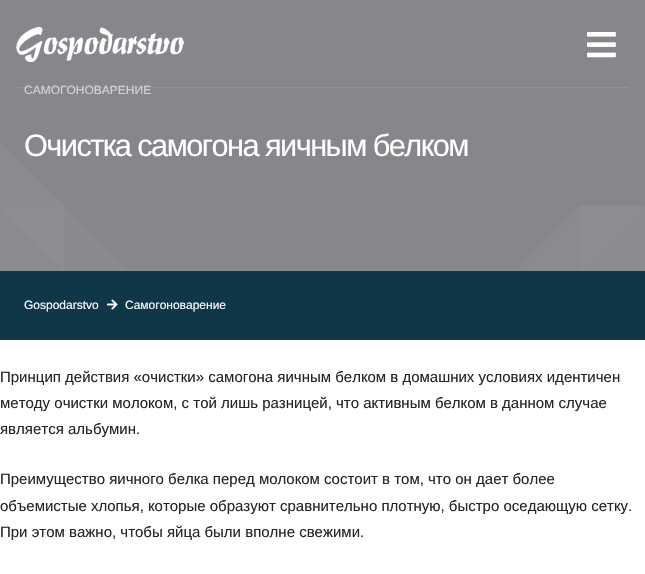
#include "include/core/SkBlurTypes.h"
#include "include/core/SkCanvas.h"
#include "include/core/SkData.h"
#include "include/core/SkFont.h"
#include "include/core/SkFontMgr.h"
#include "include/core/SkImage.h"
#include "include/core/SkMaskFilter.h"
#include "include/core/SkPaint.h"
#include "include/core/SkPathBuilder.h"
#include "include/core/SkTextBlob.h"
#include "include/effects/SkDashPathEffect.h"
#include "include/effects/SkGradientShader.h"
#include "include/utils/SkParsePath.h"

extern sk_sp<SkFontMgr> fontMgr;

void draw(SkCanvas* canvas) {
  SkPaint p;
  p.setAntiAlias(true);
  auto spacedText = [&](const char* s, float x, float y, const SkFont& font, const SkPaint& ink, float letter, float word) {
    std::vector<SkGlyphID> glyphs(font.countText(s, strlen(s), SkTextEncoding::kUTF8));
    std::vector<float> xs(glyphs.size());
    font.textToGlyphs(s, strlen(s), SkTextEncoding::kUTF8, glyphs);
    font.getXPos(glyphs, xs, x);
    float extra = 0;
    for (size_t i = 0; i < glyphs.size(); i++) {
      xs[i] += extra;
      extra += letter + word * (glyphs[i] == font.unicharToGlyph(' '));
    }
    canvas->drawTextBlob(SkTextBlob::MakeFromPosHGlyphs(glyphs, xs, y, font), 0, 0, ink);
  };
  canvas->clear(SK_ColorWHITE);
  p.setColor(SkColorSetRGB(133, 135, 138));
  canvas->drawRect(SkRect::MakeLTRB(0, 0, 645, 271), p);
  canvas->drawImageRect(SkImages::DeferredFromEncodedData(SkData::MakeFromFileName("images/1.png")), SkRect::MakeLTRB(16, 27, 184, 62), SkSamplingOptions());
  canvas->drawImageRect(SkImages::DeferredFromEncodedData(SkData::MakeFromFileName("images/2.png")), SkRect::MakeLTRB(587, 32, 616, 58), SkSamplingOptions());
  p.setColor(SkColorSetARGB(26, 255, 255, 255));
  canvas->drawRect(SkRect::MakeLTRB(16, 87, 629, 88), p);
  p.setColor(SkColorSetRGB(137, 139, 142));
  canvas->drawPath(SkPathBuilder().moveTo(0, 271).lineTo(0, 206).lineTo(64, 271).close().detach(), p);
  p.setColor(SkColorSetRGB(138, 140, 143));
  canvas->drawPath(SkPathBuilder().moveTo(0, 206).lineTo(0, 142).lineTo(64, 206).close().detach(), p);
  p.setColor(SkColorSetRGB(136, 138, 141));
  canvas->drawPath(SkPathBuilder().moveTo(64, 271).lineTo(64, 206).lineTo(129, 271).close().detach(), p);
  p.setColor(SkColorSetRGB(140, 142, 145));
  canvas->drawPath(SkPathBuilder().moveTo(0, 206).lineTo(64, 206).lineTo(64, 271).close().detach(), p);
  p.setColor(SkColorSetRGB(138, 140, 143));
  canvas->drawPath(SkPathBuilder().moveTo(645, 271).lineTo(645, 206).lineTo(580, 271).close().detach(), p);
  p.setColor(SkColorSetRGB(137, 139, 142));
  canvas->drawPath(SkPathBuilder().moveTo(580, 271).lineTo(580, 206).lineTo(516, 271).close().detach(), p);
  p.setColor(SkColorSetARGB(15, 255, 255, 255));
  canvas->drawPath(SkPathBuilder().moveTo(580, 271).lineTo(580, 206).lineTo(645, 206).close().detach(), p);
  p.setColor(SkColorSetRGB(16, 55, 72));
  canvas->drawRect(SkRect::MakeLTRB(0, 271, 645, 340), p);
  canvas->drawImageRect(SkImages::DeferredFromEncodedData(SkData::MakeFromFileName("images/3.png")), SkRect::MakeLTRB(107, 299, 118, 310), SkSamplingOptions());
  SkFont font1(fontMgr->matchFamilyStyle("Liberation Sans", SkFontStyle::Normal()), 12);
  font1.setSubpixel(true);
  p.setColor(SkColorSetRGB(212, 213, 214));
  canvas->drawString("САМОГОНОВАРЕНИЕ", 24, 94, font1, p);
  SkFont font2(fontMgr->matchFamilyStyle("Liberation Sans", SkFontStyle::Normal()), 30.75f);
  font2.setSubpixel(true);
  p.setColor(SK_ColorWHITE);
  spacedText("Очистка самогона яичным белком", 24, 156, font2, p, -1.55f, 0);
  canvas->drawString("Gospodarstvo", 24, 309, font1, p);
  canvas->drawString("Самогоноварение", 125, 309, font1, p);
  SkFont font3(fontMgr->matchFamilyStyle("Liberation Sans", SkFontStyle::Normal()), 15);
  font3.setSubpixel(true);
  p.setColor(SkColorSetRGB(33, 37, 41));
  canvas->drawString("Принцип действия «очистки» самогона яичным белком в домашних условиях идентичен", 0, 382, font3, p);
  canvas->drawString("методу очистки молоком, с той лишь разницей, что активным белком в данном случае", 0, 408, font3, p);
  canvas->drawString("является альбумин.", 0, 434, font3, p);
  canvas->drawString("Преимущество яичного белка перед молоком состоит в том, что он дает более", 0, 484, font3, p);
  canvas->drawString("объемистые хлопья, которые образуют сравнительно плотную, быстро оседающую сетку.", 0, 511, font3, p);
  canvas->drawString("При этом важно, чтобы яйца были вполне свежими.", 0, 537, font3, p);
}
